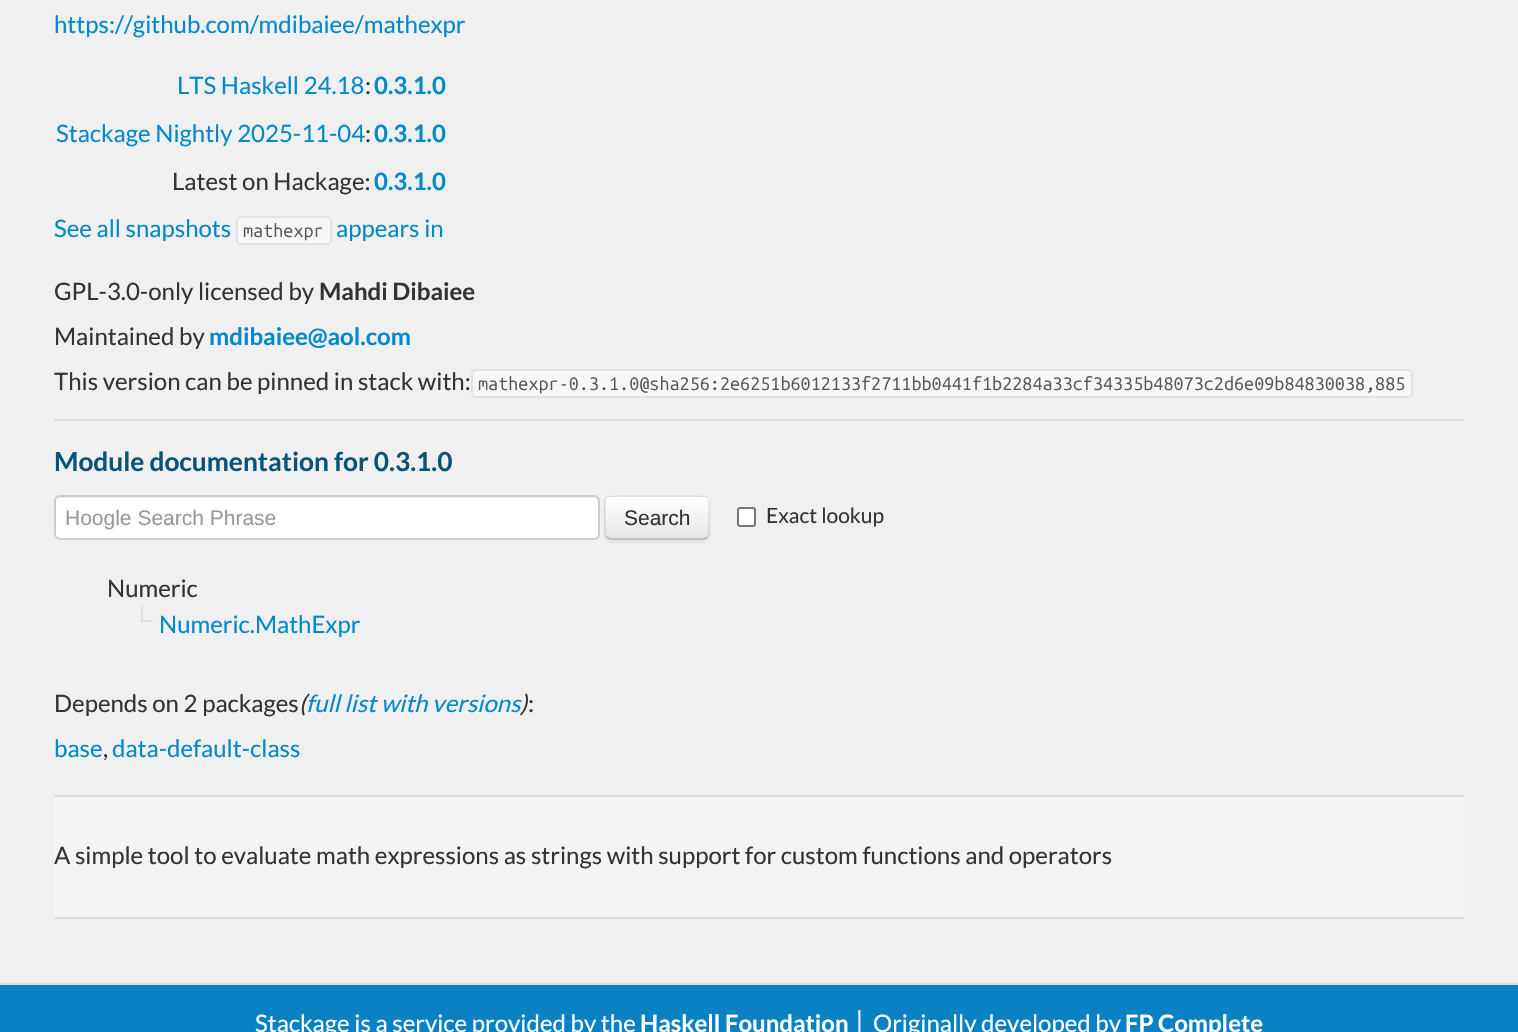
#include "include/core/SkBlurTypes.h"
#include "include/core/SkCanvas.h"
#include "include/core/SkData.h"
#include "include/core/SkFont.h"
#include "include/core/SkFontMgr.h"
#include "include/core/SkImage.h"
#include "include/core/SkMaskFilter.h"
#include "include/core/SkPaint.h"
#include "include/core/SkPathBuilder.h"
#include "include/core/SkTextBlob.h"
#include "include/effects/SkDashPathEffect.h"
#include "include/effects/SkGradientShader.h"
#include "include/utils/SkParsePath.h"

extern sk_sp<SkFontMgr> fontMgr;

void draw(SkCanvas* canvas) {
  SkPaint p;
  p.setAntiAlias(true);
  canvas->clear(SkColorSetRGB(240, 240, 240));
  p.setColor(SkColorSetRGB(247, 247, 249));
  canvas->drawRoundRect(SkRect::MakeLTRB(237, 217, 331, 244), 4, 4, p);
  p.setStyle(SkPaint::kStroke_Style);
  p.setStrokeWidth(2);
  p.setColor(SkColorSetRGB(225, 225, 232));
  canvas->drawRoundRect(SkRect::MakeLTRB(237, 217, 331, 244), 4, 4, p);
  p.setStyle(SkPaint::kFill_Style);
  p.setColor(SkColorSetRGB(247, 247, 249));
  canvas->drawRoundRect(SkRect::MakeLTRB(472, 370, 1412, 397), 4, 4, p);
  p.setStyle(SkPaint::kStroke_Style);
  p.setColor(SkColorSetRGB(225, 225, 232));
  canvas->drawRoundRect(SkRect::MakeLTRB(472, 370, 1412, 397), 4, 4, p);
  p.setStyle(SkPaint::kFill_Style);
  p.setColor(SkColorSetRGB(221, 221, 221));
  canvas->drawRect(SkRect::MakeLTRB(54, 419, 1464, 421), p);
  p.setColor(SK_ColorWHITE);
  canvas->drawRoundRect(SkRect::MakeLTRB(54, 495, 600, 540), 6, 6, p);
  p.setColor(SkColorSetRGB(236, 236, 236));
  canvas->drawPath(SkPathBuilder().moveTo(60, 498).lineTo(594, 498).cubicTo(596, 498, 598, 500, 598, 502).lineTo(598, 537).cubicTo(599, 536, 599, 535, 599, 534).lineTo(599, 502).cubicTo(599, 499, 597, 497, 594, 497).lineTo(61, 497).cubicTo(58, 497, 56, 499, 56, 502).cubicTo(56, 500, 58, 498, 60, 498).close().detach(), p);
  p.setStyle(SkPaint::kStroke_Style);
  p.setColor(SkColorSetRGB(204, 204, 204));
  canvas->drawRoundRect(SkRect::MakeLTRB(55, 496, 599, 539), 5, 5, p);
  p.setStyle(SkPaint::kFill_Style);
  p.setColor(SkColorSetARGB(13, 0, 0, 0));
  p.setMaskFilter(SkMaskFilter::MakeBlur(kNormal_SkBlurStyle, 1.5f));
  canvas->drawRoundRect(SkRect::MakeLTRB(605, 497, 710, 542), 6, 6, p);
  p.setMaskFilter(nullptr);
  p.setColor(SkColorSetRGB(245, 245, 245));
  canvas->drawRoundRect(SkRect::MakeLTRB(605, 495, 710, 540), 6, 6, p);
  canvas->save();
  canvas->clipPath(SkPathBuilder().moveTo(611, 495).lineTo(704, 495).cubicTo(707.5f, 495, 710, 497.5f, 710, 501).lineTo(710, 534).cubicTo(710, 537.5f, 707.5f, 540, 704, 540).lineTo(611, 540).cubicTo(607.5f, 540, 605, 537.5f, 605, 534).lineTo(605, 501).cubicTo(605, 497.5f, 607.5f, 495, 611, 495).close().detach(), true);
  {
    const SkColor colors[] = {SK_ColorWHITE, SkColorSetRGB(230, 230, 230)};
    const float stops[] = {0, 1};
    const SkPoint ends[] = {{657, 497}, {657, 539}};
    p.setShader(SkGradientShader::MakeLinear(ends, colors, stops, 2, SkTileMode::kClamp));
    p.setAlpha(255);
  }
  canvas->drawRect(SkRect::MakeLTRB(605, 497, 710, 539), p);
  canvas->restore();
  p.setStyle(SkPaint::kStroke_Style);
  p.setStrokeWidth(1.5f);
  p.setShader(nullptr);
  p.setColor(SkColorSetRGB(179, 179, 179));
  canvas->drawPath(SkPathBuilder().moveTo(707, 537.5f).lineTo(704, 539).lineTo(610, 539).lineTo(607, 537.5f).detach(), p);
  p.setColor(SkColorSetARGB(26, 0, 0, 0));
  canvas->drawPath(SkPathBuilder().moveTo(607, 537.5f).cubicTo(604.5f, 535.5f, 605, 531.5f, 605, 528.5f).lineTo(605, 517.5f).cubicTo(605, 493.5f, 601.5f, 496, 626, 496).lineTo(688, 496).cubicTo(712.5f, 496, 709, 493.5f, 709, 517.5f).lineTo(709, 528.5f).cubicTo(709, 531.5f, 709.5f, 535.5f, 707, 537.5f).detach(), p);
  p.setStyle(SkPaint::kFill_Style);
  p.setColor(SK_ColorWHITE);
  canvas->drawRoundRect(SkRect::MakeLTRB(738, 508, 755, 526), 2, 2, p);
  p.setStyle(SkPaint::kStroke_Style);
  p.setStrokeWidth(2);
  p.setColor(SkColorSetRGB(118, 118, 118));
  canvas->drawRoundRect(SkRect::MakeLTRB(738, 508, 755, 526), 2, 2, p);
  p.setStyle(SkPaint::kFill_Style);
  p.setColor(SkColorSetRGB(221, 221, 221));
  canvas->drawRect(SkRect::MakeLTRB(141, 606, 143, 620), p);
  canvas->drawRect(SkRect::MakeLTRB(141, 620, 153, 622), p);
  p.setColor(SkColorSetRGB(244, 244, 244));
  canvas->drawRect(SkRect::MakeLTRB(54, 797, 1464, 917), p);
  p.setColor(SkColorSetRGB(221, 221, 221));
  canvas->drawRect(SkRect::MakeLTRB(54, 795, 1464, 797), p);
  canvas->drawRect(SkRect::MakeLTRB(54, 917, 1464, 919), p);
  p.setColor(SkColorSetRGB(9, 129, 195));
  canvas->drawRect(SkRect::MakeLTRB(0, 985, 1518, 1032), p);
  p.setColor(SkColorSetRGB(221, 221, 221));
  canvas->drawRect(SkRect::MakeLTRB(0, 983, 1518, 985), p);
  SkFont font1(fontMgr->matchFamilyStyle("Lato", SkFontStyle::Normal()), 24);
  font1.setSubpixel(true);
  p.setColor(SkColorSetRGB(0, 136, 204));
  canvas->drawString("https://github.com/mdibaiee/mathexpr", 54, 33, font1, p);
  canvas->drawString("LTS Haskell 24.18", 177, 94, font1, p);
  p.setColor(SkColorSetRGB(51, 51, 51));
  canvas->drawString(":", 365, 94, font1, p);
  SkFont font2(fontMgr->matchFamilyStyle("Lato", SkFontStyle::Bold()), 24);
  font2.setSubpixel(true);
  p.setColor(SkColorSetRGB(0, 136, 204));
  canvas->drawString("0.3.1.0", 374, 94, font2, p);
  canvas->drawString("Stackage Nightly 2025-11-04", 56, 142, font1, p);
  p.setColor(SkColorSetRGB(51, 51, 51));
  canvas->drawString(":", 365, 142, font1, p);
  p.setColor(SkColorSetRGB(0, 136, 204));
  canvas->drawString("0.3.1.0", 374, 142, font2, p);
  p.setColor(SkColorSetRGB(51, 51, 51));
  canvas->drawString("Latest on Hackage:", 172, 190, font1, p);
  p.setColor(SkColorSetRGB(0, 136, 204));
  canvas->drawString("0.3.1.0", 374, 190, font2, p);
  canvas->drawString("See all snapshots", 54, 237, font1, p);
  SkFont font3(fontMgr->matchFamilyStyle("Ubuntu Mono", SkFontStyle::Normal()), 18);
  font3.setSubpixel(true);
  p.setColor(SkColorSetRGB(85, 85, 85));
  canvas->drawString("mathexpr", 243, 237, font3, p);
  p.setColor(SkColorSetRGB(0, 136, 204));
  canvas->drawString("appears in", 336, 237, font1, p);
  p.setColor(SkColorSetRGB(51, 51, 51));
  canvas->drawString("GPL-3.0-only licensed by", 54, 300, font1, p);
  canvas->drawString("Mahdi Dibaiee", 319, 300, font2, p);
  canvas->drawString("Maintained by", 54, 345, font1, p);
  p.setColor(SkColorSetRGB(0, 136, 204));
  canvas->drawString("mdibaiee@aol.com", 209, 345, font2, p);
  p.setColor(SkColorSetRGB(51, 51, 51));
  canvas->drawString("This version can be pinned in stack with:", 54, 390, font1, p);
  p.setColor(SkColorSetRGB(85, 85, 85));
  canvas->drawString("mathexpr-0.3.1.0@sha256:2e6251b6012133f2711bb0441f1b2284a33cf34335b48073c2d6e09b84830038,885", 478, 390, font3, p);
  SkFont font4(fontMgr->matchFamilyStyle("Lato", SkFontStyle::Bold()), 26.25f);
  font4.setSubpixel(true);
  p.setColor(SkColorSetRGB(6, 83, 125));
  canvas->drawString("Module documentation for 0.3.1.0", 54, 471, font4, p);
  SkFont font5(fontMgr->matchFamilyStyle("Liberation Sans", SkFontStyle::Normal()), 21);
  font5.setSubpixel(true);
  p.setColor(SkColorSetRGB(153, 153, 153));
  canvas->drawString("Hoogle Search Phrase", 65, 525, font5, p);
  p.setColor(SkColorSetRGB(51, 51, 51));
  canvas->drawString("Search", 624, 525, font5, p);
  SkFont font6(fontMgr->matchFamilyStyle("Lato", SkFontStyle::Normal()), 21);
  font6.setSubpixel(true);
  canvas->drawString("Exact lookup", 766, 523, font6, p);
  canvas->drawString("Numeric", 107, 597, font1, p);
  p.setColor(SkColorSetRGB(0, 136, 204));
  canvas->drawString("Numeric.MathExpr", 159, 633, font1, p);
  p.setColor(SkColorSetRGB(51, 51, 51));
  canvas->drawString("Depends on 2 packages", 54, 712, font1, p);
  SkFont font7(fontMgr->matchFamilyStyle("Lato", SkFontStyle::Italic()), 24);
  font7.setSubpixel(true);
  canvas->drawString("(", 299, 712, font7, p);
  p.setColor(SkColorSetRGB(0, 136, 204));
  canvas->drawString("full list with versions", 306, 712, font7, p);
  p.setColor(SkColorSetRGB(51, 51, 51));
  canvas->drawString(")", 520, 712, font7, p);
  canvas->drawString(":", 528, 712, font1, p);
  p.setColor(SkColorSetRGB(0, 136, 204));
  canvas->drawString("base", 54, 757, font1, p);
  p.setColor(SkColorSetRGB(51, 51, 51));
  canvas->drawString(",", 103, 757, font1, p);
  p.setColor(SkColorSetRGB(0, 136, 204));
  canvas->drawString("data-default-class", 112, 757, font1, p);
  p.setColor(SkColorSetRGB(51, 51, 51));
  canvas->drawString("A simple tool to evaluate math expressions as strings with support for custom functions and operators", 54, 864, font1, p);
  p.setColor(SK_ColorWHITE);
  canvas->drawString("Stackage is a service provided by the", 255, 1032, font1, p);
  canvas->drawString("Haskell Foundation", 640, 1032, font2, p);
  SkFont font8(fontMgr->matchFamilyStyle("Liberation Sans", SkFontStyle::Normal()), 24);
  font8.setSubpixel(true);
  canvas->drawString("│", 853, 1032, font8, p);
  canvas->drawString("Originally developed by", 873, 1032, font1, p);
  canvas->drawString("FP Complete", 1125, 1032, font2, p);
}
